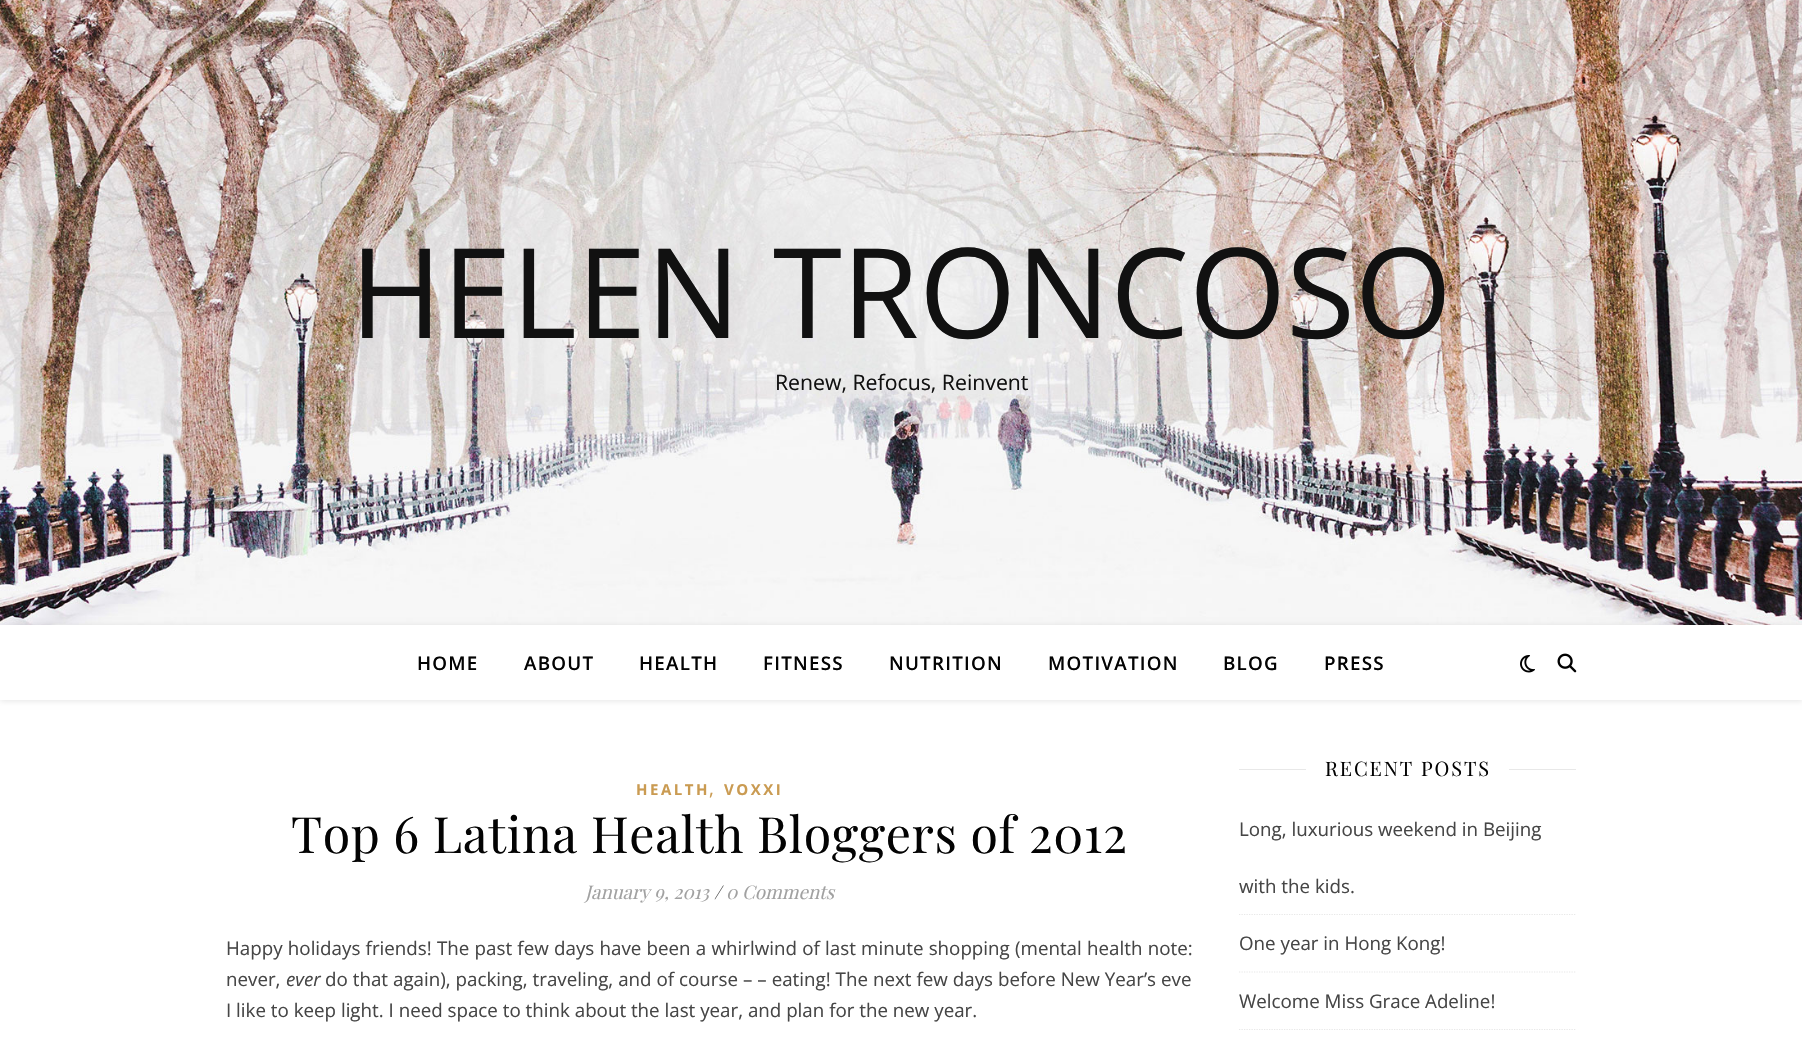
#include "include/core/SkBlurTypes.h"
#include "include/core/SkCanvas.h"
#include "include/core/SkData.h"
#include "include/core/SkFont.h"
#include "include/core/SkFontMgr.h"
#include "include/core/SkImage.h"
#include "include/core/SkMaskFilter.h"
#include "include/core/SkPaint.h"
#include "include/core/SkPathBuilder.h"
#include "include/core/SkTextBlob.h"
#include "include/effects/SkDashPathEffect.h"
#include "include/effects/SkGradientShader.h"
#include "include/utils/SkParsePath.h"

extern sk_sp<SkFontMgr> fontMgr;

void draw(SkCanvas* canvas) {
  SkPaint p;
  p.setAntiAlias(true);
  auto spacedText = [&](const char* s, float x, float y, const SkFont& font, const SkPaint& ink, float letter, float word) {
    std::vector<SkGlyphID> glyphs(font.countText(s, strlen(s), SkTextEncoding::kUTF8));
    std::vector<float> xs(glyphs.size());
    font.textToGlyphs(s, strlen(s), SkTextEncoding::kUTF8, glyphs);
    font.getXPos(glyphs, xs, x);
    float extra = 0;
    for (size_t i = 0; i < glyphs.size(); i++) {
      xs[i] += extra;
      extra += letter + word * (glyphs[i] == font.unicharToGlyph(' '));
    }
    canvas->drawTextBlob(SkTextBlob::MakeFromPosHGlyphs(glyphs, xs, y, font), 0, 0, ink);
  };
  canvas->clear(SK_ColorWHITE);
  canvas->drawImageRect(SkImages::DeferredFromEncodedData(SkData::MakeFromFileName("images/1.png")), SkRect::MakeLTRB(0, 0, 1802, 625), SkSamplingOptions());
  canvas->save();
  canvas->clipPath(SkPathBuilder(SkPathFillType::kEvenOdd).moveTo(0, 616).lineTo(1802, 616).lineTo(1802, 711).lineTo(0, 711).close().moveTo(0, 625).lineTo(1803, 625).lineTo(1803, 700).lineTo(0, 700).close().detach(), true);
  p.setColor(SkColorSetARGB(26, 0, 0, 0));
  p.setMaskFilter(SkMaskFilter::MakeBlur(kNormal_SkBlurStyle, 3));
  canvas->drawRect(SkRect::MakeLTRB(0, 626, 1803, 701), p);
  p.setMaskFilter(nullptr);
  canvas->restore();
  canvas->drawImageRect(SkImages::DeferredFromEncodedData(SkData::MakeFromFileName("images/2.png")), SkRect::MakeLTRB(1520, 655, 1535, 673), SkSamplingOptions());
  canvas->drawImageRect(SkImages::DeferredFromEncodedData(SkData::MakeFromFileName("images/3.png")), SkRect::MakeLTRB(1557, 653, 1577, 673), SkSamplingOptions());
  p.setColor(SkColorSetRGB(232, 232, 232));
  canvas->drawRect(SkRect::MakeLTRB(1239, 769, 1306, 770), p);
  canvas->drawRect(SkRect::MakeLTRB(1509, 769, 1576, 770), p);
  p.setStyle(SkPaint::kStroke_Style);
  p.setStrokeWidth(1.2f);
  p.setPathEffect(SkDashPathEffect::Make({{1.25f, 1.25f}}, 0));
  canvas->drawPath(SkPathBuilder().moveTo(1239, 914.5f).lineTo(1576, 914.5f).detach(), p);
  p.setPathEffect(nullptr);
  p.setPathEffect(SkDashPathEffect::Make({{1.25f, 1.25f}}, 0));
  canvas->drawPath(SkPathBuilder().moveTo(1239, 972).lineTo(1576, 972).detach(), p);
  p.setPathEffect(nullptr);
  canvas->save();
  canvas->clipRect(SkRect::MakeLTRB(1239, 750, 1576, 1030));
  p.setPathEffect(SkDashPathEffect::Make({{1.25f, 1.25f}}, 0));
  canvas->drawPath(SkPathBuilder().moveTo(1239, 1029.5f).lineTo(1576, 1029.5f).detach(), p);
  p.setPathEffect(nullptr);
  canvas->restore();
  SkFont font1(fontMgr->matchFamilyStyle("Open Sans", SkFontStyle::Normal()), 125);
  font1.setSubpixel(true);
  p.setStyle(SkPaint::kFill_Style);
  p.setColor(SkColorSetRGB(17, 17, 17));
  canvas->drawString("HELEN TRONCOSO", 350, 338, font1, p);
  SkFont font2(fontMgr->matchFamilyStyle("Open Sans", SkFontStyle::Normal()), 21.25f);
  font2.setSubpixel(true);
  canvas->drawString("Renew, Refocus, Reinvent", 775, 390, font2, p);
  SkFont font3(fontMgr->matchFamilyStyle("Open Sans", SkFontStyle(600, SkFontStyle::kNormal_Width, SkFontStyle::kUpright_Slant)), 18.75f);
  font3.setSubpixel(true);
  p.setColor(SkColorSetRGB(3, 3, 3));
  spacedText("HOME", 417, 670, font3, p, 1.25f, 0);
  spacedText("ABOUT", 524, 670, font3, p, 1.25f, 0);
  spacedText("HEALTH", 639, 670, font3, p, 1.25f, 0);
  spacedText("FITNESS", 763, 670, font3, p, 1.25f, 0);
  spacedText("NUTRITION", 889, 670, font3, p, 1.25f, 0);
  spacedText("MOTIVATION", 1048, 670, font3, p, 1.25f, 0);
  spacedText("BLOG", 1223, 670, font3, p, 1.25f, 0);
  spacedText("PRESS", 1324, 670, font3, p, 1.25f, 0);
  SkFont font4(fontMgr->matchFamilyStyle("Open Sans", SkFontStyle::Bold()), 15);
  font4.setSubpixel(true);
  p.setColor(SkColorSetRGB(202, 155, 82));
  spacedText("HEALTH", 636, 795, font4, p, 2.5f, 0);
  SkFont font5(fontMgr->matchFamilyStyle("Open Sans", SkFontStyle::Normal()), 18.75f);
  font5.setSubpixel(true);
  canvas->drawString(",", 709, 795, font5, p);
  spacedText("VOXXI", 724, 795, font4, p, 2.5f, 0);
  SkFont font6(fontMgr->matchFamilyStyle("Playfair Display", SkFontStyle::Normal()), 50);
  font6.setSubpixel(true);
  p.setColor(SkColorSetRGB(3, 3, 3));
  spacedText("Top 6 Latina Health Bloggers of 2012", 291, 853, font6, p, 0.6f, 0);
  SkFont font7(fontMgr->matchFamilyStyle("Playfair Display", SkFontStyle::Italic()), 18.75f);
  font7.setSubpixel(true);
  p.setColor(SkColorSetRGB(161, 161, 161));
  canvas->drawString("January 9, 2013", 585, 899, font7, p);
  p.setColor(SkColorSetRGB(70, 70, 70));
  canvas->drawString("/", 714, 899, font7, p);
  p.setColor(SkColorSetRGB(161, 161, 161));
  canvas->drawString("0 Comments", 726, 899, font7, p);
  p.setColor(SkColorSetRGB(70, 70, 70));
  spacedText("Happy holidays friends! The past few days have been a whirlwind of last minute shopping (mental health note:", 226, 955, font5, p, 0, 0.4f);
  canvas->drawString("never,", 226, 986, font5, p);
  SkFont font8(fontMgr->matchFamilyStyle("Open Sans", SkFontStyle::Italic()), 18.75f);
  font8.setSubpixel(true);
  canvas->drawString("ever", 286, 986, font8, p);
  spacedText("do that again), packing, traveling, and of course – – eating! The next few days before New Year’s eve", 325, 986, font5, p, 0, 0.1f);
  canvas->drawString("I like to keep light. I need space to think about the last year, and plan for the new year.", 226, 1017, font5, p);
  SkFont font9(fontMgr->matchFamilyStyle("Playfair Display", SkFontStyle::Normal()), 20);
  font9.setSubpixel(true);
  p.setColor(SkColorSetRGB(3, 3, 3));
  spacedText("RECENT POSTS", 1325, 776, font9, p, 1.9f, 0);
  p.setColor(SkColorSetRGB(70, 70, 70));
  canvas->drawString("Long, luxurious weekend in Beijing", 1239, 836, font5, p);
  canvas->drawString("with the kids.", 1239, 893, font5, p);
  canvas->drawString("One year in Hong Kong!", 1239, 950, font5, p);
  canvas->drawString("Welcome Miss Grace Adeline!", 1239, 1008, font5, p);
}
